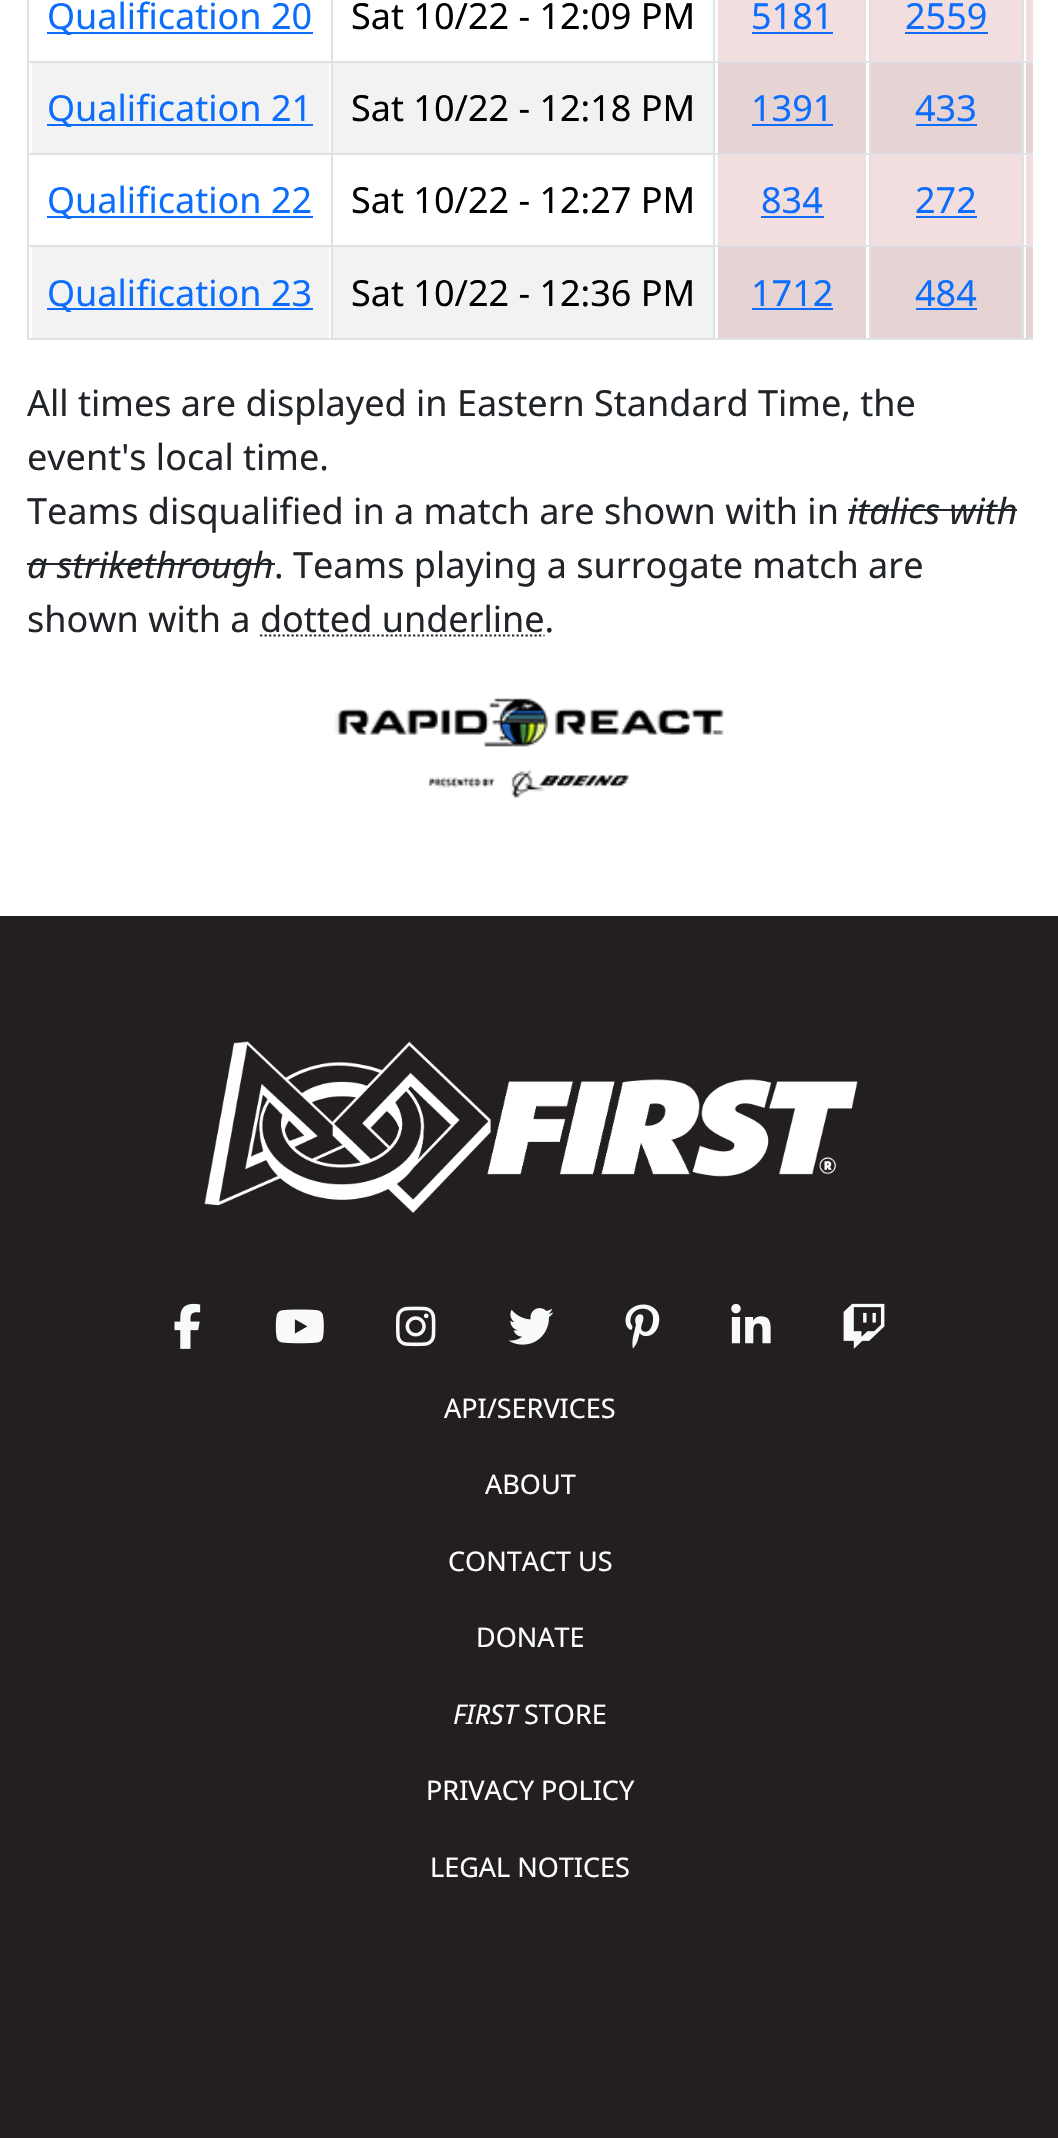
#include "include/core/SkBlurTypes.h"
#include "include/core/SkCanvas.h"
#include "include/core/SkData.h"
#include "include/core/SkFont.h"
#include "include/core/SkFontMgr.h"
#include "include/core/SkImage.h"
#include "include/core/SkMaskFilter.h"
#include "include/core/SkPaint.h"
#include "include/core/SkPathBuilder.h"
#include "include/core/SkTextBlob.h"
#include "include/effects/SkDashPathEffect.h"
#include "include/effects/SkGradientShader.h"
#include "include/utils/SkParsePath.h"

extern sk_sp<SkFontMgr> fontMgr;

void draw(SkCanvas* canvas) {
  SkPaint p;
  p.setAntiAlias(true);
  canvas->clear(SK_ColorWHITE);
  p.setColor(SkColorSetRGB(13, 110, 253));
  canvas->drawRect(SkRect::MakeLTRB(47, 32, 313, 34), p);
  p.setColor(SkColorSetRGB(242, 222, 222));
  canvas->drawRect(SkRect::MakeLTRB(718, 0, 866, 61), p);
  p.setColor(SkColorSetRGB(13, 110, 253));
  canvas->drawRect(SkRect::MakeLTRB(752, 32, 833, 34), p);
  p.setColor(SkColorSetRGB(242, 222, 222));
  canvas->drawRect(SkRect::MakeLTRB(871, 0, 1022, 61), p);
  p.setColor(SkColorSetRGB(13, 110, 253));
  canvas->drawRect(SkRect::MakeLTRB(905, 32, 988, 34), p);
  p.setColor(SkColorSetRGB(242, 222, 222));
  canvas->drawRect(SkRect::MakeLTRB(1026, 0, 1033, 61), p);
  p.setColor(SkColorSetRGB(230, 211, 211));
  canvas->drawRect(SkRect::MakeLTRB(1026, 61, 1033, 153), p);
  p.setColor(SkColorSetRGB(222, 226, 230));
  canvas->drawRect(SkRect::MakeLTRB(27, 61, 1033, 63), p);
  p.setColor(SkColorSetRGB(242, 242, 242));
  canvas->drawRect(SkRect::MakeLTRB(32, 63, 329, 153), p);
  p.setColor(SkColorSetRGB(13, 110, 253));
  canvas->drawRect(SkRect::MakeLTRB(47, 124, 313, 126), p);
  p.setColor(SkColorSetRGB(242, 242, 242));
  canvas->drawRect(SkRect::MakeLTRB(333, 63, 713, 153), p);
  p.setColor(SkColorSetRGB(230, 211, 211));
  canvas->drawRect(SkRect::MakeLTRB(718, 63, 866, 153), p);
  p.setColor(SkColorSetRGB(13, 110, 253));
  canvas->drawRect(SkRect::MakeLTRB(752, 124, 833, 126), p);
  p.setColor(SkColorSetRGB(230, 211, 211));
  canvas->drawRect(SkRect::MakeLTRB(871, 63, 1022, 153), p);
  p.setColor(SkColorSetRGB(13, 110, 253));
  canvas->drawRect(SkRect::MakeLTRB(916, 124, 977, 126), p);
  p.setColor(SkColorSetRGB(242, 222, 222));
  canvas->drawRect(SkRect::MakeLTRB(1026, 153, 1033, 245), p);
  p.setColor(SkColorSetRGB(222, 226, 230));
  canvas->drawRect(SkRect::MakeLTRB(27, 153, 1033, 155), p);
  p.setColor(SkColorSetRGB(13, 110, 253));
  canvas->drawRect(SkRect::MakeLTRB(47, 216, 313, 218), p);
  p.setColor(SkColorSetRGB(242, 222, 222));
  canvas->drawRect(SkRect::MakeLTRB(718, 155, 866, 245), p);
  p.setColor(SkColorSetRGB(13, 110, 253));
  canvas->drawRect(SkRect::MakeLTRB(761, 216, 824, 218), p);
  p.setColor(SkColorSetRGB(242, 222, 222));
  canvas->drawRect(SkRect::MakeLTRB(871, 155, 1022, 245), p);
  p.setColor(SkColorSetRGB(13, 110, 253));
  canvas->drawRect(SkRect::MakeLTRB(916, 216, 977, 218), p);
  p.setColor(SkColorSetRGB(230, 211, 211));
  canvas->drawRect(SkRect::MakeLTRB(1026, 245, 1033, 338), p);
  p.setColor(SkColorSetRGB(222, 226, 230));
  canvas->drawRect(SkRect::MakeLTRB(27, 245, 1033, 247), p);
  canvas->drawRect(SkRect::MakeLTRB(27, 338, 1033, 340), p);
  p.setColor(SkColorSetRGB(242, 242, 242));
  canvas->drawRect(SkRect::MakeLTRB(32, 247, 329, 338), p);
  p.setColor(SkColorSetRGB(222, 226, 230));
  canvas->drawRect(SkRect::MakeLTRB(27, 0, 29, 340), p);
  p.setColor(SkColorSetRGB(13, 110, 253));
  canvas->drawRect(SkRect::MakeLTRB(47, 308, 313, 310), p);
  p.setColor(SkColorSetRGB(242, 242, 242));
  canvas->drawRect(SkRect::MakeLTRB(333, 247, 713, 338), p);
  p.setColor(SkColorSetRGB(222, 226, 230));
  canvas->drawRect(SkRect::MakeLTRB(331, 0, 333, 340), p);
  p.setColor(SkColorSetRGB(230, 211, 211));
  canvas->drawRect(SkRect::MakeLTRB(718, 247, 866, 338), p);
  p.setColor(SkColorSetRGB(222, 226, 230));
  canvas->drawRect(SkRect::MakeLTRB(713, 0, 715, 340), p);
  p.setColor(SkColorSetRGB(13, 110, 253));
  canvas->drawRect(SkRect::MakeLTRB(752, 308, 833, 310), p);
  p.setColor(SkColorSetRGB(230, 211, 211));
  canvas->drawRect(SkRect::MakeLTRB(871, 247, 1022, 338), p);
  p.setColor(SkColorSetRGB(222, 226, 230));
  canvas->drawRect(SkRect::MakeLTRB(869, 0, 871, 340), p);
  p.setColor(SkColorSetRGB(13, 110, 253));
  canvas->drawRect(SkRect::MakeLTRB(916, 308, 977, 310), p);
  p.setColor(SkColorSetRGB(222, 226, 230));
  canvas->drawRect(SkRect::MakeLTRB(1022, 0, 1024, 340), p);
  p.setColor(SkColorSetRGB(33, 37, 41));
  canvas->drawRect(SkRect::MakeLTRB(848, 509, 1017, 511), p);
  canvas->drawRect(SkRect::MakeLTRB(27, 563, 275, 565), p);
  p.setStyle(SkPaint::kStroke_Style);
  p.setStrokeWidth(2.2f);
  p.setPathEffect(SkDashPathEffect::Make({{2.25f, 2.25f}}, 0));
  canvas->drawPath(SkPathBuilder().moveTo(260, 635.5f).lineTo(544.5f, 635.5f).detach(), p);
  p.setPathEffect(nullptr);
  canvas->drawImageRect(SkImages::DeferredFromEncodedData(SkData::MakeFromFileName("images/1.png")), SkRect::MakeLTRB(334, 698, 724, 798), SkSamplingOptions());
  p.setStyle(SkPaint::kFill_Style);
  p.setColor(SkColorSetRGB(35, 31, 32));
  canvas->drawRect(SkRect::MakeLTRB(0, 916, 1058, 2138), p);
  canvas->drawImageRect(SkImages::DeferredFromEncodedData(SkData::MakeFromFileName("images/2.png")), SkRect::MakeLTRB(204, 1041, 858, 1213), SkSamplingOptions());
  canvas->drawImageRect(SkImages::DeferredFromEncodedData(SkData::MakeFromFileName("images/3.png")), SkRect::MakeLTRB(174, 1303, 201, 1349), SkSamplingOptions());
  canvas->drawImageRect(SkImages::DeferredFromEncodedData(SkData::MakeFromFileName("images/4.png")), SkRect::MakeLTRB(275, 1309, 324, 1344), SkSamplingOptions());
  canvas->drawImageRect(SkImages::DeferredFromEncodedData(SkData::MakeFromFileName("images/5.png")), SkRect::MakeLTRB(396, 1306, 436, 1347), SkSamplingOptions());
  canvas->drawImageRect(SkImages::DeferredFromEncodedData(SkData::MakeFromFileName("images/6.png")), SkRect::MakeLTRB(508, 1308, 554, 1345), SkSamplingOptions());
  canvas->drawImageRect(SkImages::DeferredFromEncodedData(SkData::MakeFromFileName("images/7.png")), SkRect::MakeLTRB(625, 1304, 660, 1349), SkSamplingOptions());
  canvas->drawImageRect(SkImages::DeferredFromEncodedData(SkData::MakeFromFileName("images/8.png")), SkRect::MakeLTRB(731, 1303, 771, 1344), SkSamplingOptions());
  canvas->drawImageRect(SkImages::DeferredFromEncodedData(SkData::MakeFromFileName("images/9.png")), SkRect::MakeLTRB(843, 1303, 885, 1349), SkSamplingOptions());
  SkFont font1(fontMgr->matchFamilyStyle("Noto Sans", SkFontStyle::Normal()), 36);
  font1.setSubpixel(true);
  p.setColor(SkColorSetRGB(13, 110, 253));
  canvas->drawString("Qualification 20", 47, 29, font1, p);
  p.setColor(SK_ColorBLACK);
  canvas->drawString("Sat 10/22 - 12:09 PM", 351, 29, font1, p);
  p.setColor(SkColorSetRGB(13, 110, 253));
  canvas->drawString("5181", 751, 29, font1, p);
  canvas->drawString("2559", 905, 29, font1, p);
  canvas->drawString("Qualification 21", 47, 121, font1, p);
  p.setColor(SK_ColorBLACK);
  canvas->drawString("Sat 10/22 - 12:18 PM", 351, 121, font1, p);
  p.setColor(SkColorSetRGB(13, 110, 253));
  canvas->drawString("1391", 751, 121, font1, p);
  canvas->drawString("433", 915, 121, font1, p);
  canvas->drawString("Qualification 22", 47, 213, font1, p);
  p.setColor(SK_ColorBLACK);
  canvas->drawString("Sat 10/22 - 12:27 PM", 351, 213, font1, p);
  p.setColor(SkColorSetRGB(13, 110, 253));
  canvas->drawString("834", 761, 213, font1, p);
  canvas->drawString("272", 915, 213, font1, p);
  canvas->drawString("Qualification 23", 47, 306, font1, p);
  p.setColor(SK_ColorBLACK);
  canvas->drawString("Sat 10/22 - 12:36 PM", 351, 306, font1, p);
  p.setColor(SkColorSetRGB(13, 110, 253));
  canvas->drawString("1712", 751, 306, font1, p);
  canvas->drawString("484", 915, 306, font1, p);
  p.setColor(SkColorSetRGB(33, 37, 41));
  canvas->drawString("All times are displayed in Eastern Standard Time, the", 27, 416, font1, p);
  canvas->drawString("event's local time.", 27, 470, font1, p);
  canvas->drawString("Teams disqualified in a match are shown with in", 27, 524, font1, p);
  SkFont font2(fontMgr->matchFamilyStyle("Noto Sans", SkFontStyle::Italic()), 36);
  font2.setSubpixel(true);
  canvas->drawString("italics with", 848, 524, font2, p);
  canvas->drawString("a strikethrough", 27, 578, font2, p);
  canvas->drawString(". Teams playing a surrogate match are", 274, 578, font1, p);
  canvas->drawString("shown with a dotted underline.", 27, 632, font1, p);
  SkFont font3(fontMgr->matchFamilyStyle("Noto Sans", SkFontStyle::Normal()), 27);
  font3.setSubpixel(true);
  p.setColor(SK_ColorWHITE);
  canvas->drawString("API/SERVICES", 444, 1418, font3, p);
  canvas->drawString("ABOUT", 485, 1494, font3, p);
  canvas->drawString("CONTACT US", 448, 1571, font3, p);
  canvas->drawString("DONATE", 476, 1647, font3, p);
  SkFont font4(fontMgr->matchFamilyStyle("Noto Sans", SkFontStyle::Italic()), 27);
  font4.setSubpixel(true);
  canvas->drawString("FIRST", 453, 1724, font4, p);
  canvas->drawString("STORE", 524, 1724, font3, p);
  canvas->drawString("PRIVACY POLICY", 426, 1800, font3, p);
  canvas->drawString("LEGAL NOTICES", 430, 1877, font3, p);
}
